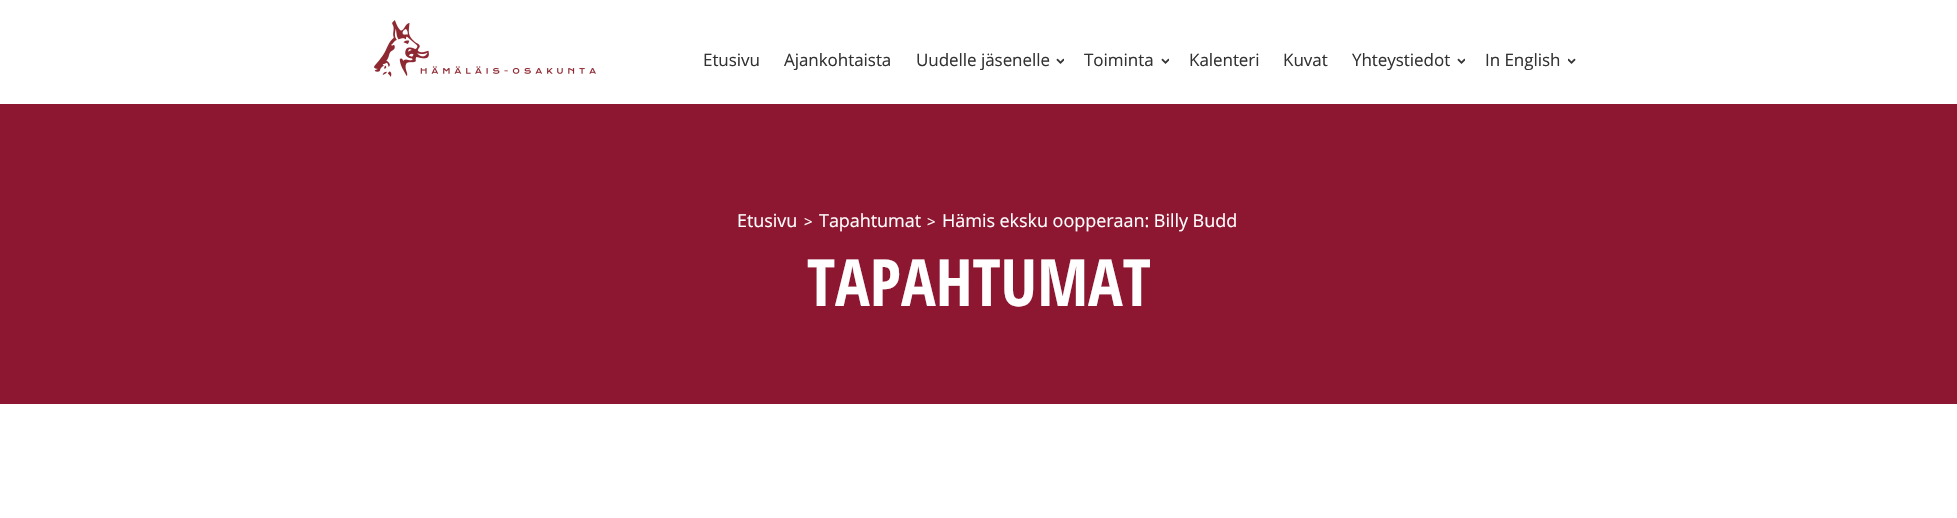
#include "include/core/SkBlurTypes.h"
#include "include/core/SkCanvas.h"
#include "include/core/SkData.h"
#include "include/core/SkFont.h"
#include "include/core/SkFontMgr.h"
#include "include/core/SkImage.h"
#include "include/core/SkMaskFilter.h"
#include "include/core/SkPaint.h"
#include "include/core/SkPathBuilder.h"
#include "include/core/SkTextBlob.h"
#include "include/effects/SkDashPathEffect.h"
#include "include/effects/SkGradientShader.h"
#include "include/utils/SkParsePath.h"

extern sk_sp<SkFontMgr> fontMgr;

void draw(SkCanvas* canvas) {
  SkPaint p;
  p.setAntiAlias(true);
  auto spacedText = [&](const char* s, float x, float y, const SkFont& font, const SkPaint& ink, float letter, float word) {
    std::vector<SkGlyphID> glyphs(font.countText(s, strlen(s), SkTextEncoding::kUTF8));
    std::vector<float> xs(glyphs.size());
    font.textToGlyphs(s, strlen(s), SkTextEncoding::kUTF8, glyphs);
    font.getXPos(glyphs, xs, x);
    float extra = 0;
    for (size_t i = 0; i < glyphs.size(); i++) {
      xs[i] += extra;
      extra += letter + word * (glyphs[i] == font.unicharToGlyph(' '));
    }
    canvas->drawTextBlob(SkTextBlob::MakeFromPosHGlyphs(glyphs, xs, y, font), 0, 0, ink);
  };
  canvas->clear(SK_ColorWHITE);
  canvas->drawImageRect(SkImages::DeferredFromEncodedData(SkData::MakeFromFileName("images/1.png")), SkRect::MakeLTRB(374, 20, 596, 77), SkSamplingOptions());
  canvas->drawImageRect(SkImages::DeferredFromEncodedData(SkData::MakeFromFileName("images/2.png")), SkRect::MakeLTRB(1056, 58, 1064, 64), SkSamplingOptions());
  canvas->drawImageRect(SkImages::DeferredFromEncodedData(SkData::MakeFromFileName("images/2.png")), SkRect::MakeLTRB(1161, 58, 1169, 64), SkSamplingOptions());
  canvas->drawImageRect(SkImages::DeferredFromEncodedData(SkData::MakeFromFileName("images/2.png")), SkRect::MakeLTRB(1457, 58, 1465, 64), SkSamplingOptions());
  canvas->drawImageRect(SkImages::DeferredFromEncodedData(SkData::MakeFromFileName("images/3.png")), SkRect::MakeLTRB(1568, 58, 1576, 64), SkSamplingOptions());
  p.setColor(SkColorSetRGB(141, 22, 49));
  canvas->drawRect(SkRect::MakeLTRB(0, 104, 1957, 404), p);
  SkFont font1(fontMgr->matchFamilyStyle("Open Sans", SkFontStyle::Normal()), 17);
  font1.setSubpixel(true);
  p.setColor(SkColorSetRGB(51, 51, 51));
  spacedText("Etusivu", 703, 66, font1, p, -0.05f, 0);
  spacedText("Ajankohtaista", 784, 66, font1, p, -0.05f, 0);
  spacedText("Uudelle jäsenelle", 916, 66, font1, p, -0.05f, 0);
  spacedText("Toiminta", 1084, 66, font1, p, -0.05f, 0);
  spacedText("Kalenteri", 1189, 66, font1, p, -0.05f, 0);
  spacedText("Kuvat", 1283, 66, font1, p, -0.05f, 0);
  spacedText("Yhteystiedot", 1352, 66, font1, p, -0.05f, 0);
  spacedText("In English", 1485, 66, font1, p, -0.05f, 0);
  SkFont font2(fontMgr->matchFamilyStyle("Open Sans", SkFontStyle::Normal()), 18);
  font2.setSubpixel(true);
  p.setColor(SK_ColorWHITE);
  spacedText("Etusivu", 737, 227, font2, p, -0.05f, 0);
  SkFont font3(fontMgr->matchFamilyStyle("Open Sans", SkFontStyle::Normal()), 15);
  font3.setSubpixel(true);
  spacedText(">", 804, 227, font3, p, -0.05f, 0);
  spacedText("Tapahtumat", 819, 227, font2, p, -0.05f, 0);
  spacedText(">", 927, 227, font3, p, -0.05f, 0);
  spacedText("Hämis eksku oopperaan: Billy Budd", 942, 227, font2, p, -0.05f, 0);
  SkFont font4(fontMgr->matchFamilyStyle("Open Sans Condensed", SkFontStyle::Bold()), 65);
  font4.setSubpixel(true);
  canvas->drawString("TAPAHTUMAT", 807, 306, font4, p);
}
